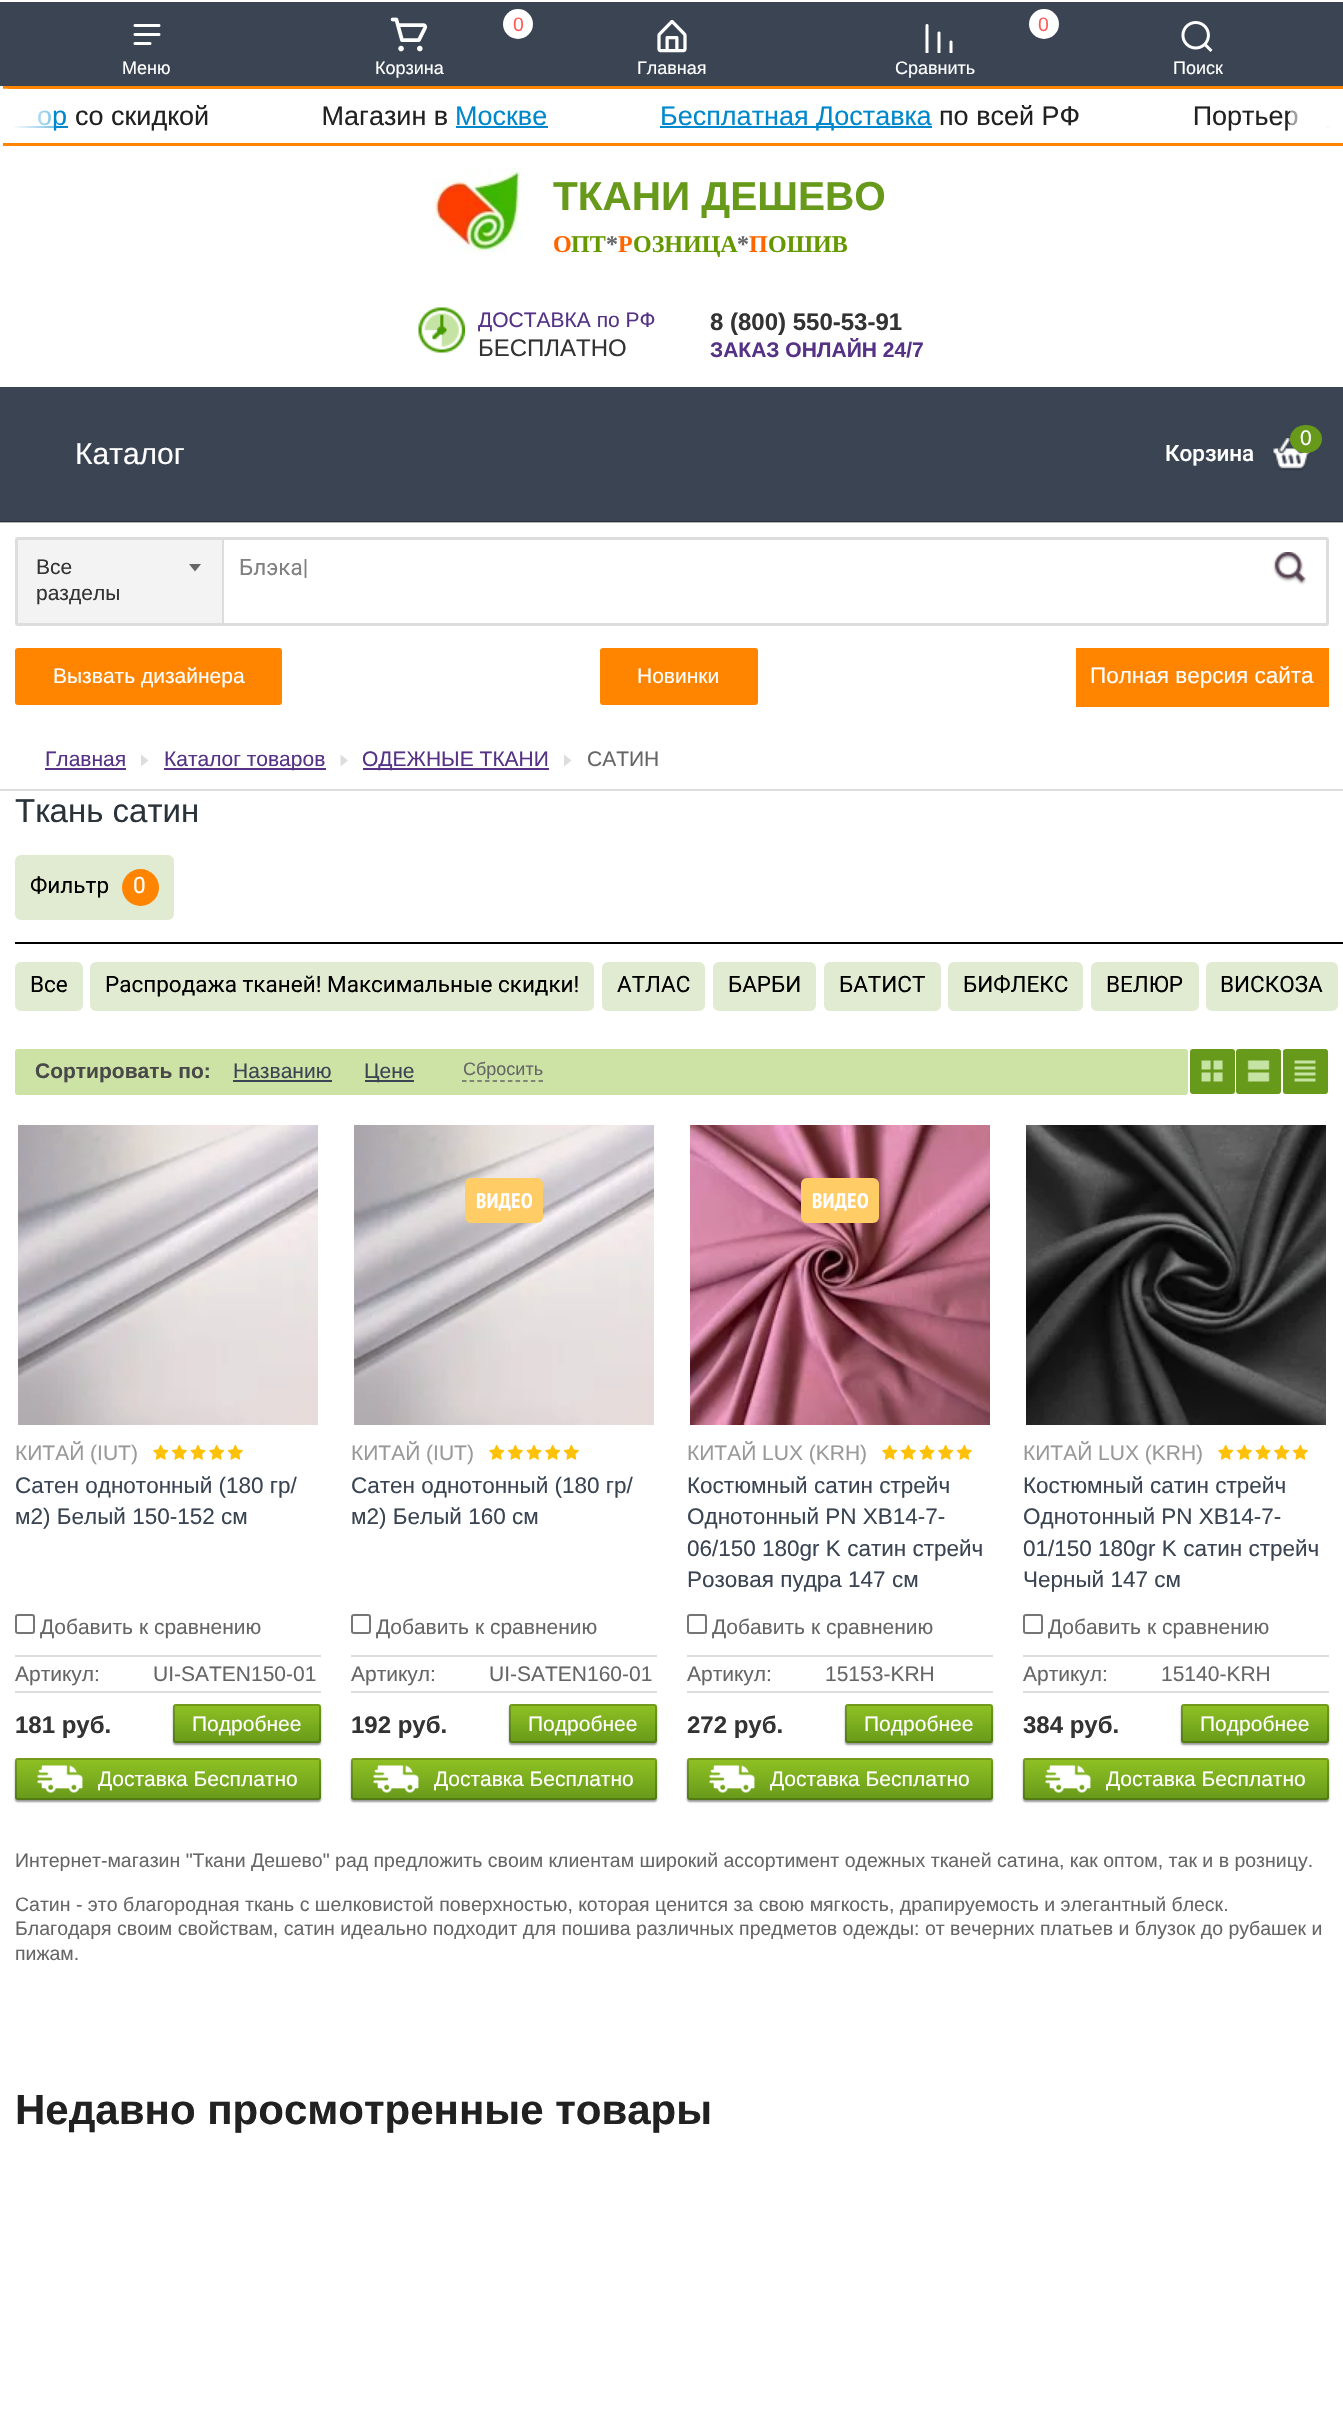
#include "include/core/SkBlurTypes.h"
#include "include/core/SkCanvas.h"
#include "include/core/SkData.h"
#include "include/core/SkFont.h"
#include "include/core/SkFontMgr.h"
#include "include/core/SkImage.h"
#include "include/core/SkMaskFilter.h"
#include "include/core/SkPaint.h"
#include "include/core/SkPathBuilder.h"
#include "include/core/SkTextBlob.h"
#include "include/effects/SkDashPathEffect.h"
#include "include/effects/SkGradientShader.h"
#include "include/utils/SkParsePath.h"

extern sk_sp<SkFontMgr> fontMgr;

void draw(SkCanvas* canvas) {
  SkPaint p;
  p.setAntiAlias(true);
  auto spacedText = [&](const char* s, float x, float y, const SkFont& font, const SkPaint& ink, float letter, float word) {
    std::vector<SkGlyphID> glyphs(font.countText(s, strlen(s), SkTextEncoding::kUTF8));
    std::vector<float> xs(glyphs.size());
    font.textToGlyphs(s, strlen(s), SkTextEncoding::kUTF8, glyphs);
    font.getXPos(glyphs, xs, x);
    float extra = 0;
    for (size_t i = 0; i < glyphs.size(); i++) {
      xs[i] += extra;
      extra += letter + word * (glyphs[i] == font.unicharToGlyph(' '));
    }
    canvas->drawTextBlob(SkTextBlob::MakeFromPosHGlyphs(glyphs, xs, y, font), 0, 0, ink);
  };
  canvas->clear(SK_ColorWHITE);
  p.setColor(SkColorSetRGB(179, 179, 179));
  canvas->drawRect(SkRect::MakeLTRB(0, 522, 1343, 523), p);
  p.setColor(SkColorSetRGB(58, 68, 82));
  canvas->drawRect(SkRect::MakeLTRB(0, 2, 1343, 86), p);
  canvas->drawImageRect(SkImages::DeferredFromEncodedData(SkData::MakeFromFileName("images/1.png")), SkRect::MakeLTRB(133, 24, 161, 45), SkSamplingOptions());
  canvas->drawImageRect(SkImages::DeferredFromEncodedData(SkData::MakeFromFileName("images/2.png")), SkRect::MakeLTRB(390, 17, 428, 52), SkSamplingOptions());
  p.setColor(SK_ColorWHITE);
  canvas->drawCircle(518, 24, 15, p);
  canvas->drawImageRect(SkImages::DeferredFromEncodedData(SkData::MakeFromFileName("images/3.png")), SkRect::MakeLTRB(657, 20, 687, 53), SkSamplingOptions());
  canvas->drawImageRect(SkImages::DeferredFromEncodedData(SkData::MakeFromFileName("images/4.png")), SkRect::MakeLTRB(925, 24, 953, 53), SkSamplingOptions());
  canvas->drawCircle(1044, 24, 15, p);
  canvas->drawImageRect(SkImages::DeferredFromEncodedData(SkData::MakeFromFileName("images/5.png")), SkRect::MakeLTRB(1181, 21, 1213, 52), SkSamplingOptions());
  p.setColor(SkColorSetRGB(255, 132, 0));
  canvas->drawRect(SkRect::MakeLTRB(3, 86, 1343, 89), p);
  canvas->drawRect(SkRect::MakeLTRB(3, 143, 1343, 146), p);
  p.setColor(SkColorSetRGB(0, 136, 204));
  canvas->drawRect(SkRect::MakeLTRB(12, 126, 68, 128), p);
  canvas->drawRect(SkRect::MakeLTRB(456, 126, 548, 128), p);
  canvas->drawRect(SkRect::MakeLTRB(660, 126, 932, 128), p);
  canvas->drawRect(SkRect::MakeLTRB(1326, 126, 1332, 128), p);
  canvas->drawImageRect(SkImages::DeferredFromEncodedData(SkData::MakeFromFileName("images/6.png")), SkRect::MakeLTRB(433, 168, 522, 253), SkSamplingOptions());
  canvas->drawImageRect(SkImages::DeferredFromEncodedData(SkData::MakeFromFileName("images/7.png")), SkRect::MakeLTRB(418, 307, 465, 353), SkSamplingOptions());
  p.setColor(SkColorSetRGB(58, 68, 82));
  canvas->drawRect(SkRect::MakeLTRB(0, 387, 1343, 521), p);
  p.setColor(SkColorSetRGB(41, 48, 57));
  canvas->drawRect(SkRect::MakeLTRB(0, 521, 1343, 522), p);
  canvas->drawImageRect(SkImages::DeferredFromEncodedData(SkData::MakeFromFileName("images/8.png")), SkRect::MakeLTRB(1272, 438, 1311, 471), SkSamplingOptions());
  p.setColor(SkColorSetRGB(103, 153, 26));
  canvas->drawOval(SkRect::MakeLTRB(1290, 425, 1322, 453), p);
  p.setStyle(SkPaint::kStroke_Style);
  p.setStrokeWidth(3);
  p.setColor(SkColorSetRGB(221, 221, 221));
  canvas->drawRoundRect(SkRect::MakeLTRB(16.5f, 538.5f, 1327.5f, 624.5f), 1.5f, 1.5f, p);
  p.setStyle(SkPaint::kFill_Style);
  p.setColor(SkColorSetRGB(243, 243, 243));
  canvas->drawRect(SkRect::MakeLTRB(18, 540, 222, 623), p);
  p.setColor(SkColorSetRGB(221, 221, 221));
  canvas->drawRect(SkRect::MakeLTRB(222, 540, 224, 623), p);
  p.setColor(SkColorSetRGB(102, 102, 102));
  canvas->drawPath(SkPathBuilder().moveTo(189, 564).lineTo(201, 564).lineTo(195, 571.5f).close().detach(), p);
  canvas->drawImageRect(SkImages::DeferredFromEncodedData(SkData::MakeFromFileName("images/9.png")), SkRect::MakeLTRB(1273, 552, 1307, 585), SkSamplingOptions());
  p.setColor(SkColorSetRGB(255, 132, 0));
  canvas->drawRoundRect(SkRect::MakeLTRB(15, 648, 282, 705), 3, 3, p);
  canvas->drawRoundRect(SkRect::MakeLTRB(600, 648, 758, 705), 3, 3, p);
  canvas->drawRect(SkRect::MakeLTRB(1076, 648, 1329, 707), p);
  p.setColor(SkColorSetRGB(221, 221, 221));
  canvas->drawRect(SkRect::MakeLTRB(0, 789, 1343, 791), p);
  p.setColor(SkColorSetRGB(85, 50, 133));
  canvas->drawRect(SkRect::MakeLTRB(45, 768, 126, 770), p);
  p.setColor(SkColorSetRGB(221, 221, 221));
  canvas->drawPath(SkPathBuilder().moveTo(141, 766.5f).lineTo(141, 754.5f).lineTo(148.5f, 760.5f).close().detach(), p);
  p.setColor(SkColorSetRGB(85, 50, 133));
  canvas->drawRect(SkRect::MakeLTRB(164, 768, 326, 770), p);
  p.setColor(SkColorSetRGB(221, 221, 221));
  canvas->drawPath(SkPathBuilder().moveTo(340.5f, 766.5f).lineTo(340.5f, 754.5f).lineTo(348, 760.5f).close().detach(), p);
  p.setColor(SkColorSetRGB(85, 50, 133));
  canvas->drawRect(SkRect::MakeLTRB(363, 768, 549, 770), p);
  p.setColor(SkColorSetRGB(221, 221, 221));
  canvas->drawPath(SkPathBuilder().moveTo(564, 766.5f).lineTo(564, 754.5f).lineTo(571.5f, 760.5f).close().detach(), p);
  p.setColor(SkColorSetRGB(225, 235, 209));
  canvas->drawRoundRect(SkRect::MakeLTRB(15, 855, 174, 920), 6, 6, p);
  p.setColor(SkColorSetRGB(255, 132, 0));
  canvas->drawCircle(140.5f, 887.5f, 18.5f, p);
  p.setColor(SK_ColorBLACK);
  canvas->drawRect(SkRect::MakeLTRB(15, 942, 1343, 944), p);
  p.setColor(SkColorSetRGB(225, 235, 209));
  canvas->drawRoundRect(SkRect::MakeLTRB(15, 962, 83, 1011), 6, 6, p);
  canvas->drawRoundRect(SkRect::MakeLTRB(90, 962, 594, 1011), 6, 6, p);
  canvas->drawRoundRect(SkRect::MakeLTRB(602, 962, 705, 1011), 6, 6, p);
  canvas->drawRoundRect(SkRect::MakeLTRB(713, 962, 816, 1011), 6, 6, p);
  canvas->drawRoundRect(SkRect::MakeLTRB(824, 962, 941, 1011), 6, 6, p);
  canvas->drawRoundRect(SkRect::MakeLTRB(948, 962, 1083, 1011), 6, 6, p);
  canvas->drawRoundRect(SkRect::MakeLTRB(1091, 962, 1199, 1011), 6, 6, p);
  canvas->drawRoundRect(SkRect::MakeLTRB(1206, 962, 1338, 1011), 6, 6, p);
  p.setColor(SkColorSetRGB(205, 226, 165));
  canvas->drawRoundRect(SkRect::MakeLTRB(15, 1049, 1188, 1095), 3, 3, p);
  p.setColor(SkColorSetRGB(58, 68, 82));
  canvas->drawRect(SkRect::MakeLTRB(233, 1080, 332, 1082), p);
  canvas->drawRect(SkRect::MakeLTRB(365, 1080, 414, 1082), p);
  p.setStyle(SkPaint::kStroke_Style);
  p.setStrokeWidth(1.5f);
  p.setColor(SkColorSetRGB(102, 102, 102));
  p.setPathEffect(SkDashPathEffect::Make({{4.5f, 3.15f}}, 0));
  canvas->drawPath(SkPathBuilder().moveTo(462, 1081).lineTo(543, 1081).detach(), p);
  p.setPathEffect(nullptr);
  p.setStyle(SkPaint::kFill_Style);
  p.setColor(SkColorSetRGB(103, 153, 26));
  canvas->drawRoundRect(SkRect::MakeLTRB(1190, 1049, 1235, 1094), 3, 3, p);
  canvas->drawImageRect(SkImages::DeferredFromEncodedData(SkData::MakeFromFileName("images/10.png")), SkRect::MakeLTRB(1201, 1060, 1223, 1082), SkSamplingOptions());
  canvas->drawRoundRect(SkRect::MakeLTRB(1236, 1049, 1281, 1094), 3, 3, p);
  canvas->drawImageRect(SkImages::DeferredFromEncodedData(SkData::MakeFromFileName("images/11.png")), SkRect::MakeLTRB(1247, 1060, 1270, 1082), SkSamplingOptions());
  canvas->drawRoundRect(SkRect::MakeLTRB(1283, 1049, 1328, 1094), 3, 3, p);
  canvas->drawImageRect(SkImages::DeferredFromEncodedData(SkData::MakeFromFileName("images/12.png")), SkRect::MakeLTRB(1294, 1060, 1316, 1082), SkSamplingOptions());
  canvas->drawImageRect(SkImages::DeferredFromEncodedData(SkData::MakeFromFileName("images/13.png")), SkRect::MakeLTRB(18, 1125, 318, 1425), SkSamplingOptions());
  canvas->drawImageRect(SkImages::DeferredFromEncodedData(SkData::MakeFromFileName("images/14.png")), SkRect::MakeLTRB(153, 1445, 243, 1460), SkSamplingOptions());
  p.setStyle(SkPaint::kStroke_Style);
  p.setStrokeWidth(2);
  p.setColor(SkColorSetRGB(118, 118, 118));
  canvas->drawRoundRect(SkRect::MakeLTRB(16, 1615, 34, 1633), 2, 2, p);
  p.setStyle(SkPaint::kFill_Style);
  p.setColor(SkColorSetRGB(221, 221, 221));
  canvas->drawRect(SkRect::MakeLTRB(15, 1655, 321, 1657), p);
  canvas->drawRect(SkRect::MakeLTRB(15, 1691, 321, 1693), p);
  p.setColor(SkColorSetARGB(102, 0, 0, 0));
  p.setMaskFilter(SkMaskFilter::MakeBlur(kNormal_SkBlurStyle, 1));
  canvas->drawRoundRect(SkRect::MakeLTRB(173, 1706, 321, 1745), 3, 3, p);
  p.setMaskFilter(nullptr);
  {
    const SkColor colors[] = {SkColorSetRGB(144, 194, 36), SkColorSetRGB(103, 153, 26)};
    const float stops[] = {0, 1};
    const SkPoint ends[] = {{247, 1704}, {247, 1743}};
    p.setShader(SkGradientShader::MakeLinear(ends, colors, stops, 2, SkTileMode::kClamp));
    p.setAlpha(255);
  }
  canvas->drawRoundRect(SkRect::MakeLTRB(173, 1704, 321, 1743), 3, 3, p);
  p.setStyle(SkPaint::kStroke_Style);
  p.setShader(nullptr);
  p.setColor(SkColorSetARGB(51, 0, 0, 0));
  canvas->drawRoundRect(SkRect::MakeLTRB(174, 1705, 320, 1742), 2, 2, p);
  p.setStyle(SkPaint::kFill_Style);
  p.setColor(SkColorSetARGB(102, 0, 0, 0));
  p.setMaskFilter(SkMaskFilter::MakeBlur(kNormal_SkBlurStyle, 1));
  canvas->drawRoundRect(SkRect::MakeLTRB(15, 1760, 321, 1802), 3, 3, p);
  p.setMaskFilter(nullptr);
  {
    const SkColor colors[] = {SkColorSetRGB(144, 194, 36), SkColorSetRGB(103, 153, 26)};
    const float stops[] = {0, 1};
    const SkPoint ends[] = {{168, 1758}, {168, 1800}};
    p.setShader(SkGradientShader::MakeLinear(ends, colors, stops, 2, SkTileMode::kClamp));
    p.setAlpha(255);
  }
  canvas->drawRoundRect(SkRect::MakeLTRB(15, 1758, 321, 1800), 3, 3, p);
  p.setStyle(SkPaint::kStroke_Style);
  p.setShader(nullptr);
  p.setColor(SkColorSetARGB(51, 0, 0, 0));
  canvas->drawRoundRect(SkRect::MakeLTRB(16, 1759, 320, 1799), 2, 2, p);
  canvas->drawImageRect(SkImages::DeferredFromEncodedData(SkData::MakeFromFileName("images/15.png")), SkRect::MakeLTRB(37, 1765, 83, 1793), SkSamplingOptions());
  canvas->drawImageRect(SkImages::DeferredFromEncodedData(SkData::MakeFromFileName("images/16.png")), SkRect::MakeLTRB(354, 1125, 654, 1425), SkSamplingOptions());
  p.setStyle(SkPaint::kFill_Style);
  p.setColor(SkColorSetRGB(255, 204, 102));
  canvas->drawRoundRect(SkRect::MakeLTRB(465, 1178, 543, 1223), 6, 6, p);
  canvas->drawImageRect(SkImages::DeferredFromEncodedData(SkData::MakeFromFileName("images/14.png")), SkRect::MakeLTRB(489, 1445, 579, 1460), SkSamplingOptions());
  p.setStyle(SkPaint::kStroke_Style);
  p.setColor(SkColorSetRGB(118, 118, 118));
  canvas->drawRoundRect(SkRect::MakeLTRB(352, 1615, 370, 1633), 2, 2, p);
  p.setStyle(SkPaint::kFill_Style);
  p.setColor(SkColorSetRGB(221, 221, 221));
  canvas->drawRect(SkRect::MakeLTRB(351, 1655, 657, 1657), p);
  canvas->drawRect(SkRect::MakeLTRB(351, 1691, 657, 1693), p);
  p.setColor(SkColorSetARGB(102, 0, 0, 0));
  p.setMaskFilter(SkMaskFilter::MakeBlur(kNormal_SkBlurStyle, 1));
  canvas->drawRoundRect(SkRect::MakeLTRB(509, 1706, 657, 1745), 3, 3, p);
  p.setMaskFilter(nullptr);
  {
    const SkColor colors[] = {SkColorSetRGB(144, 194, 36), SkColorSetRGB(103, 153, 26)};
    const float stops[] = {0, 1};
    const SkPoint ends[] = {{583, 1704}, {583, 1743}};
    p.setShader(SkGradientShader::MakeLinear(ends, colors, stops, 2, SkTileMode::kClamp));
    p.setAlpha(255);
  }
  canvas->drawRoundRect(SkRect::MakeLTRB(509, 1704, 657, 1743), 3, 3, p);
  p.setStyle(SkPaint::kStroke_Style);
  p.setShader(nullptr);
  p.setColor(SkColorSetARGB(51, 0, 0, 0));
  canvas->drawRoundRect(SkRect::MakeLTRB(510, 1705, 656, 1742), 2, 2, p);
  p.setStyle(SkPaint::kFill_Style);
  p.setColor(SkColorSetARGB(102, 0, 0, 0));
  p.setMaskFilter(SkMaskFilter::MakeBlur(kNormal_SkBlurStyle, 1));
  canvas->drawRoundRect(SkRect::MakeLTRB(351, 1760, 657, 1802), 3, 3, p);
  p.setMaskFilter(nullptr);
  {
    const SkColor colors[] = {SkColorSetRGB(144, 194, 36), SkColorSetRGB(103, 153, 26)};
    const float stops[] = {0, 1};
    const SkPoint ends[] = {{504, 1758}, {504, 1800}};
    p.setShader(SkGradientShader::MakeLinear(ends, colors, stops, 2, SkTileMode::kClamp));
    p.setAlpha(255);
  }
  canvas->drawRoundRect(SkRect::MakeLTRB(351, 1758, 657, 1800), 3, 3, p);
  p.setStyle(SkPaint::kStroke_Style);
  p.setShader(nullptr);
  p.setColor(SkColorSetARGB(51, 0, 0, 0));
  canvas->drawRoundRect(SkRect::MakeLTRB(352, 1759, 656, 1799), 2, 2, p);
  canvas->drawImageRect(SkImages::DeferredFromEncodedData(SkData::MakeFromFileName("images/17.png")), SkRect::MakeLTRB(373, 1765, 419, 1793), SkSamplingOptions());
  canvas->drawImageRect(SkImages::DeferredFromEncodedData(SkData::MakeFromFileName("images/18.png")), SkRect::MakeLTRB(690, 1125, 990, 1425), SkSamplingOptions());
  p.setStyle(SkPaint::kFill_Style);
  p.setColor(SkColorSetRGB(255, 204, 102));
  canvas->drawRoundRect(SkRect::MakeLTRB(801, 1178, 879, 1223), 6, 6, p);
  canvas->drawImageRect(SkImages::DeferredFromEncodedData(SkData::MakeFromFileName("images/14.png")), SkRect::MakeLTRB(882, 1445, 972, 1460), SkSamplingOptions());
  p.setStyle(SkPaint::kStroke_Style);
  p.setColor(SkColorSetRGB(118, 118, 118));
  canvas->drawRoundRect(SkRect::MakeLTRB(688, 1615, 706, 1633), 2, 2, p);
  p.setStyle(SkPaint::kFill_Style);
  p.setColor(SkColorSetRGB(221, 221, 221));
  canvas->drawRect(SkRect::MakeLTRB(687, 1655, 993, 1657), p);
  canvas->drawRect(SkRect::MakeLTRB(687, 1691, 993, 1693), p);
  p.setColor(SkColorSetARGB(102, 0, 0, 0));
  p.setMaskFilter(SkMaskFilter::MakeBlur(kNormal_SkBlurStyle, 1));
  canvas->drawRoundRect(SkRect::MakeLTRB(845, 1706, 993, 1745), 3, 3, p);
  p.setMaskFilter(nullptr);
  {
    const SkColor colors[] = {SkColorSetRGB(144, 194, 36), SkColorSetRGB(103, 153, 26)};
    const float stops[] = {0, 1};
    const SkPoint ends[] = {{919, 1704}, {919, 1743}};
    p.setShader(SkGradientShader::MakeLinear(ends, colors, stops, 2, SkTileMode::kClamp));
    p.setAlpha(255);
  }
  canvas->drawRoundRect(SkRect::MakeLTRB(845, 1704, 993, 1743), 3, 3, p);
  p.setStyle(SkPaint::kStroke_Style);
  p.setShader(nullptr);
  p.setColor(SkColorSetARGB(51, 0, 0, 0));
  canvas->drawRoundRect(SkRect::MakeLTRB(846, 1705, 992, 1742), 2, 2, p);
  p.setStyle(SkPaint::kFill_Style);
  p.setColor(SkColorSetARGB(102, 0, 0, 0));
  p.setMaskFilter(SkMaskFilter::MakeBlur(kNormal_SkBlurStyle, 1));
  canvas->drawRoundRect(SkRect::MakeLTRB(687, 1760, 993, 1802), 3, 3, p);
  p.setMaskFilter(nullptr);
  {
    const SkColor colors[] = {SkColorSetRGB(144, 194, 36), SkColorSetRGB(103, 153, 26)};
    const float stops[] = {0, 1};
    const SkPoint ends[] = {{840, 1758}, {840, 1800}};
    p.setShader(SkGradientShader::MakeLinear(ends, colors, stops, 2, SkTileMode::kClamp));
    p.setAlpha(255);
  }
  canvas->drawRoundRect(SkRect::MakeLTRB(687, 1758, 993, 1800), 3, 3, p);
  p.setStyle(SkPaint::kStroke_Style);
  p.setShader(nullptr);
  p.setColor(SkColorSetARGB(51, 0, 0, 0));
  canvas->drawRoundRect(SkRect::MakeLTRB(688, 1759, 992, 1799), 2, 2, p);
  canvas->drawImageRect(SkImages::DeferredFromEncodedData(SkData::MakeFromFileName("images/17.png")), SkRect::MakeLTRB(709, 1765, 755, 1793), SkSamplingOptions());
  canvas->drawImageRect(SkImages::DeferredFromEncodedData(SkData::MakeFromFileName("images/19.png")), SkRect::MakeLTRB(1026, 1125, 1326, 1425), SkSamplingOptions());
  canvas->drawImageRect(SkImages::DeferredFromEncodedData(SkData::MakeFromFileName("images/14.png")), SkRect::MakeLTRB(1218, 1445, 1308, 1460), SkSamplingOptions());
  p.setColor(SkColorSetRGB(118, 118, 118));
  canvas->drawRoundRect(SkRect::MakeLTRB(1024, 1615, 1042, 1633), 2, 2, p);
  p.setStyle(SkPaint::kFill_Style);
  p.setColor(SkColorSetRGB(221, 221, 221));
  canvas->drawRect(SkRect::MakeLTRB(1023, 1655, 1329, 1657), p);
  canvas->drawRect(SkRect::MakeLTRB(1023, 1691, 1329, 1693), p);
  p.setColor(SkColorSetARGB(102, 0, 0, 0));
  p.setMaskFilter(SkMaskFilter::MakeBlur(kNormal_SkBlurStyle, 1));
  canvas->drawRoundRect(SkRect::MakeLTRB(1181, 1706, 1329, 1745), 3, 3, p);
  p.setMaskFilter(nullptr);
  {
    const SkColor colors[] = {SkColorSetRGB(144, 194, 36), SkColorSetRGB(103, 153, 26)};
    const float stops[] = {0, 1};
    const SkPoint ends[] = {{1255, 1704}, {1255, 1743}};
    p.setShader(SkGradientShader::MakeLinear(ends, colors, stops, 2, SkTileMode::kClamp));
    p.setAlpha(255);
  }
  canvas->drawRoundRect(SkRect::MakeLTRB(1181, 1704, 1329, 1743), 3, 3, p);
  p.setStyle(SkPaint::kStroke_Style);
  p.setShader(nullptr);
  p.setColor(SkColorSetARGB(51, 0, 0, 0));
  canvas->drawRoundRect(SkRect::MakeLTRB(1182, 1705, 1328, 1742), 2, 2, p);
  p.setStyle(SkPaint::kFill_Style);
  p.setColor(SkColorSetARGB(102, 0, 0, 0));
  p.setMaskFilter(SkMaskFilter::MakeBlur(kNormal_SkBlurStyle, 1));
  canvas->drawRoundRect(SkRect::MakeLTRB(1023, 1760, 1329, 1802), 3, 3, p);
  p.setMaskFilter(nullptr);
  {
    const SkColor colors[] = {SkColorSetRGB(144, 194, 36), SkColorSetRGB(103, 153, 26)};
    const float stops[] = {0, 1};
    const SkPoint ends[] = {{1176, 1758}, {1176, 1800}};
    p.setShader(SkGradientShader::MakeLinear(ends, colors, stops, 2, SkTileMode::kClamp));
    p.setAlpha(255);
  }
  canvas->drawRoundRect(SkRect::MakeLTRB(1023, 1758, 1329, 1800), 3, 3, p);
  p.setStyle(SkPaint::kStroke_Style);
  p.setShader(nullptr);
  p.setColor(SkColorSetARGB(51, 0, 0, 0));
  canvas->drawRoundRect(SkRect::MakeLTRB(1024, 1759, 1328, 1799), 2, 2, p);
  canvas->drawImageRect(SkImages::DeferredFromEncodedData(SkData::MakeFromFileName("images/15.png")), SkRect::MakeLTRB(1045, 1765, 1091, 1793), SkSamplingOptions());
  SkFont font1(fontMgr->matchFamilyStyle("Liberation Sans", SkFontStyle::Normal()), 18);
  font1.setSubpixel(true);
  p.setStyle(SkPaint::kFill_Style);
  p.setColor(SK_ColorWHITE);
  canvas->drawString("Меню", 122, 74, font1, p);
  SkFont font2(fontMgr->matchFamilyStyle("Liberation Sans", SkFontStyle::Normal()), 19.5f);
  font2.setSubpixel(true);
  p.setColor(SkColorSetRGB(255, 89, 89));
  canvas->drawString("0", 513, 31, font2, p);
  p.setColor(SK_ColorWHITE);
  canvas->drawString("Корзина", 375, 74, font1, p);
  canvas->drawString("Главная", 637, 74, font1, p);
  p.setColor(SkColorSetRGB(255, 89, 89));
  canvas->drawString("0", 1038, 31, font2, p);
  p.setColor(SK_ColorWHITE);
  canvas->drawString("Сравнить", 895, 74, font1, p);
  canvas->drawString("Поиск", 1173, 74, font1, p);
  SkFont font3(fontMgr->matchFamilyStyle("Liberation Sans", SkFontStyle::Normal()), 27);
  font3.setSubpixel(true);
  p.setColor(SkColorSetRGB(0, 136, 204));
  canvas->drawString("ор", 37, 125, font3, p);
  p.setColor(SkColorSetARGB(128, 255, 255, 255));
  canvas->drawPath(SkPathBuilder().moveTo(0, 90).lineTo(0, 141).cubicTo(0, 142, 2, 142, 4, 142).lineTo(54, 142).lineTo(54, 89).lineTo(1, 89).close().detach(), p);
  p.setColor(SK_ColorWHITE);
  canvas->drawPath(SkPathBuilder().moveTo(0, 90).lineTo(0, 124).cubicTo(0, 144, -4, 142, 12, 142).lineTo(12, 89).cubicTo(10, 89, 0, 88, 0, 90).close().detach(), p);
  {
    const SkColor colors[] = {SK_ColorWHITE, SkColorSetARGB(0, 255, 255, 255)};
    const float stops[] = {0, 1};
    const SkPoint ends[] = {{12, 116}, {54, 116}};
    p.setShader(SkGradientShader::MakeLinear(ends, colors, stops, 2, SkTileMode::kClamp));
    p.setAlpha(255);
  }
  canvas->drawRect(SkRect::MakeLTRB(12, 110, 53, 128), p);
  p.setShader(nullptr);
  p.setColor(SkColorSetRGB(33, 33, 33));
  canvas->drawString("со скидкой               Магазин в", 75, 125, font3, p);
  p.setColor(SkColorSetRGB(0, 136, 204));
  canvas->drawString("Москве", 455, 125, font3, p);
  canvas->drawString("Бесплатная Доставка", 660, 125, font3, p);
  p.setColor(SkColorSetRGB(33, 33, 33));
  canvas->drawString("по всей РФ               Портьер", 939, 125, font3, p);
  p.setColor(SkColorSetARGB(128, 255, 255, 255));
  canvas->drawPath(SkPathBuilder().moveTo(1290, 89).lineTo(1290, 142).lineTo(1340, 142).cubicTo(1342, 142, 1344, 142, 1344, 141).lineTo(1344, 90).lineTo(1343, 89).close().detach(), p);
  {
    const SkColor colors[] = {SkColorSetARGB(0, 255, 255, 255), SK_ColorWHITE};
    const float stops[] = {0, 1};
    const SkPoint ends[] = {{1290, 116}, {1332, 116}};
    p.setShader(SkGradientShader::MakeLinear(ends, colors, stops, 2, SkTileMode::kClamp));
    p.setAlpha(255);
  }
  canvas->drawRect(SkRect::MakeLTRB(1291, 110, 1332, 128), p);
  SkFont font4(fontMgr->matchFamilyStyle("Liberation Sans", SkFontStyle::Bold()), 40.5f);
  font4.setSubpixel(true);
  p.setShader(nullptr);
  p.setColor(SkColorSetRGB(103, 153, 26));
  canvas->drawString("ТКАНИ ДЕШЕВО", 553, 210, font4, p);
  SkFont font5(fontMgr->matchFamilyStyle("Liberation Serif", SkFontStyle::Bold()), 24);
  font5.setSubpixel(true);
  p.setColor(SkColorSetRGB(255, 102, 0));
  canvas->drawString("О", 553, 252, font5, p);
  p.setColor(SkColorSetRGB(102, 153, 0));
  canvas->drawString("ПТ", 571, 252, font5, p);
  p.setColor(SkColorSetRGB(102, 102, 102));
  canvas->drawString("*", 606, 252, font5, p);
  p.setColor(SkColorSetRGB(255, 102, 0));
  canvas->drawString("Р", 618, 252, font5, p);
  p.setColor(SkColorSetRGB(102, 153, 0));
  canvas->drawString("ОЗНИЦА", 633, 252, font5, p);
  p.setColor(SkColorSetRGB(102, 102, 102));
  canvas->drawString("*", 737, 252, font5, p);
  p.setColor(SkColorSetRGB(255, 102, 0));
  canvas->drawString("П", 749, 252, font5, p);
  p.setColor(SkColorSetRGB(102, 153, 0));
  canvas->drawString("ОШИВ", 768, 252, font5, p);
  SkFont font6(fontMgr->matchFamilyStyle("Liberation Sans", SkFontStyle::Normal()), 21);
  font6.setSubpixel(true);
  p.setColor(SkColorSetRGB(85, 50, 133));
  canvas->drawString("ДОСТАВКА по РФ", 478, 327, font6, p);
  SkFont font7(fontMgr->matchFamilyStyle("Liberation Sans", SkFontStyle::Normal()), 24);
  font7.setSubpixel(true);
  p.setColor(SkColorSetRGB(51, 51, 51));
  canvas->drawString("БЕСПЛАТНО", 478, 356, font7, p);
  SkFont font8(fontMgr->matchFamilyStyle("Liberation Sans", SkFontStyle::Bold()), 24);
  font8.setSubpixel(true);
  canvas->drawString("8 (800) 550-53-91", 710, 330, font8, p);
  SkFont font9(fontMgr->matchFamilyStyle("Liberation Sans", SkFontStyle::Bold()), 21);
  font9.setSubpixel(true);
  p.setColor(SkColorSetRGB(85, 50, 133));
  canvas->drawString("ЗАКАЗ ОНЛАЙН 24/7", 710, 357, font9, p);
  SkFont font10(fontMgr->matchFamilyStyle("Liberation Sans", SkFontStyle::Normal()), 30);
  font10.setSubpixel(true);
  p.setColor(SK_ColorWHITE);
  canvas->drawString("Каталог", 75, 464, font10, p);
  canvas->drawString("0", 1300, 445, font6, p);
  SkFont font11(fontMgr->matchFamilyStyle("Roboto", SkFontStyle(500, SkFontStyle::kNormal_Width, SkFontStyle::kUpright_Slant)), 22.5f);
  font11.setSubpixel(true);
  canvas->drawString("Корзина", 1165, 461, font11, p);
  p.setColor(SkColorSetRGB(51, 51, 51));
  canvas->drawString("Все", 36, 574, font6, p);
  canvas->drawString("разделы", 36, 600, font6, p);
  SkFont font12(fontMgr->matchFamilyStyle("Roboto", SkFontStyle::Normal()), 22.5f);
  font12.setSubpixel(true);
  p.setColor(SkColorSetRGB(128, 128, 128));
  canvas->drawString("Блэка|", 239, 575, font12, p);
  p.setColor(SK_ColorWHITE);
  canvas->drawString("Вызвать дизайнера", 53, 683, font6, p);
  canvas->drawString("Новинки", 637, 683, font6, p);
  SkFont font13(fontMgr->matchFamilyStyle("Liberation Sans", SkFontStyle::Normal()), 22.5f);
  font13.setSubpixel(true);
  canvas->drawString("Полная версия сайта", 1090, 683, font13, p);
  p.setColor(SkColorSetRGB(85, 50, 133));
  canvas->drawString("Главная", 45, 766, font6, p);
  canvas->drawString("Каталог товаров", 164, 766, font6, p);
  canvas->drawString("ОДЕЖНЫЕ ТКАНИ", 362, 766, font6, p);
  p.setColor(SkColorSetRGB(102, 102, 102));
  canvas->drawString("САТИН", 587, 766, font6, p);
  SkFont font14(fontMgr->matchFamilyStyle("Liberation Sans", SkFontStyle::Normal()), 33);
  font14.setSubpixel(true);
  p.setColor(SkColorSetRGB(43, 51, 58));
  canvas->drawString("Ткань сатин", 15, 822, font14, p);
  p.setColor(SK_ColorBLACK);
  canvas->drawString("Фильтр", 30, 893, font12, p);
  p.setColor(SK_ColorWHITE);
  canvas->drawString("0", 133, 893, font12, p);
  p.setColor(SK_ColorBLACK);
  canvas->drawString("Все", 30, 992, font12, p);
  canvas->drawString("Распродажа тканей! Максимальные скидки!", 105, 992, font12, p);
  canvas->drawString("АТЛАС", 617, 992, font12, p);
  canvas->drawString("БАРБИ", 728, 992, font12, p);
  canvas->drawString("БАТИСТ", 839, 992, font12, p);
  canvas->drawString("БИФЛЕКС", 963, 992, font12, p);
  canvas->drawString("ВЕЛЮР", 1106, 992, font12, p);
  canvas->drawString("ВИСКОЗА", 1220, 992, font12, p);
  p.setColor(SkColorSetRGB(72, 72, 72));
  canvas->drawString("Сортировать по:", 35, 1078, font9, p);
  p.setColor(SkColorSetRGB(58, 68, 82));
  canvas->drawString("Названию", 233, 1078, font6, p);
  canvas->drawString("Цене", 364, 1078, font6, p);
  p.setColor(SkColorSetRGB(102, 102, 102));
  canvas->drawString("Сбросить", 463, 1075, font1, p);
  p.setColor(SkColorSetRGB(153, 153, 153));
  canvas->drawString("КИТАЙ (IUT)", 15, 1460, font6, p);
  p.setColor(SkColorSetRGB(58, 68, 82));
  canvas->drawString("Сатен однотонный (180 гр/", 15, 1493, font13, p);
  canvas->drawString("м2) Белый 150-152 см", 15, 1524, font13, p);
  p.setColor(SkColorSetRGB(102, 102, 102));
  canvas->drawString("Добавить к сравнению", 40, 1634, font6, p);
  canvas->drawString("Артикул:", 15, 1681, font6, p);
  canvas->drawString("UI-SATEN150-01", 153, 1681, font6, p);
  p.setColor(SkColorSetRGB(51, 51, 51));
  canvas->drawString("181 руб.", 15, 1733, font8, p);
  p.setColor(SK_ColorWHITE);
  canvas->drawString("Подробнее", 192, 1731, font6, p);
  canvas->drawString("Доставка Бесплатно", 98, 1786, font6, p);
  SkFont font15(fontMgr->matchFamilyStyle("PT Sans Narrow", SkFontStyle::Bold()), 21);
  font15.setSubpixel(true);
  spacedText("ВИДЕО", 476, 1208, font15, p, 0.5f, 0);
  p.setColor(SkColorSetRGB(153, 153, 153));
  canvas->drawString("КИТАЙ (IUT)", 351, 1460, font6, p);
  p.setColor(SkColorSetRGB(58, 68, 82));
  canvas->drawString("Сатен однотонный (180 гр/", 351, 1493, font13, p);
  canvas->drawString("м2) Белый 160 см", 351, 1524, font13, p);
  p.setColor(SkColorSetRGB(102, 102, 102));
  canvas->drawString("Добавить к сравнению", 376, 1634, font6, p);
  canvas->drawString("Артикул:", 351, 1681, font6, p);
  canvas->drawString("UI-SATEN160-01", 489, 1681, font6, p);
  p.setColor(SkColorSetRGB(51, 51, 51));
  canvas->drawString("192 руб.", 351, 1733, font8, p);
  p.setColor(SK_ColorWHITE);
  canvas->drawString("Подробнее", 528, 1731, font6, p);
  canvas->drawString("Доставка Бесплатно", 434, 1786, font6, p);
  spacedText("ВИДЕО", 812, 1208, font15, p, 0.5f, 0);
  p.setColor(SkColorSetRGB(153, 153, 153));
  canvas->drawString("КИТАЙ LUX (KRH)", 687, 1460, font6, p);
  p.setColor(SkColorSetRGB(58, 68, 82));
  canvas->drawString("Костюмный сатин стрейч", 687, 1493, font13, p);
  canvas->drawString("Однотонный PN XB14-7-", 687, 1524, font13, p);
  canvas->drawString("06/150 180gr K сатин стрейч", 687, 1556, font13, p);
  canvas->drawString("Розовая пудра 147 см", 687, 1587, font13, p);
  p.setColor(SkColorSetRGB(102, 102, 102));
  canvas->drawString("Добавить к сравнению", 712, 1634, font6, p);
  canvas->drawString("Артикул:", 687, 1681, font6, p);
  canvas->drawString("15153-KRH", 825, 1681, font6, p);
  p.setColor(SkColorSetRGB(51, 51, 51));
  canvas->drawString("272 руб.", 687, 1733, font8, p);
  p.setColor(SK_ColorWHITE);
  canvas->drawString("Подробнее", 864, 1731, font6, p);
  canvas->drawString("Доставка Бесплатно", 770, 1786, font6, p);
  p.setColor(SkColorSetRGB(153, 153, 153));
  canvas->drawString("КИТАЙ LUX (KRH)", 1023, 1460, font6, p);
  p.setColor(SkColorSetRGB(58, 68, 82));
  canvas->drawString("Костюмный сатин стрейч", 1023, 1493, font13, p);
  canvas->drawString("Однотонный PN XB14-7-", 1023, 1524, font13, p);
  canvas->drawString("01/150 180gr K сатин стрейч", 1023, 1556, font13, p);
  canvas->drawString("Черный 147 см", 1023, 1587, font13, p);
  p.setColor(SkColorSetRGB(102, 102, 102));
  canvas->drawString("Добавить к сравнению", 1048, 1634, font6, p);
  canvas->drawString("Артикул:", 1023, 1681, font6, p);
  canvas->drawString("15140-KRH", 1161, 1681, font6, p);
  p.setColor(SkColorSetRGB(51, 51, 51));
  canvas->drawString("384 руб.", 1023, 1733, font8, p);
  p.setColor(SK_ColorWHITE);
  canvas->drawString("Подробнее", 1200, 1731, font6, p);
  canvas->drawString("Доставка Бесплатно", 1106, 1786, font6, p);
  p.setColor(SkColorSetRGB(102, 102, 102));
  canvas->drawString("Интернет-магазин \"Ткани Дешево\" рад предложить своим клиентам широкий ассортимент одежных тканей сатина, как оптом, так и в розницу.", 15, 1867, font2, p);
  canvas->drawString("Сатин - это благородная ткань с шелковистой поверхностью, которая ценится за свою мягкость, драпируемость и элегантный блеск.", 15, 1911, font2, p);
  canvas->drawString("Благодаря своим свойствам, сатин идеально подходит для пошива различных предметов одежды: от вечерних платьев и блузок до рубашек и", 15, 1935, font2, p);
  canvas->drawString("пижам.", 15, 1960, font2, p);
  SkFont font16(fontMgr->matchFamilyStyle("Liberation Sans", SkFontStyle::Bold()), 42);
  font16.setSubpixel(true);
  p.setColor(SkColorSetRGB(33, 33, 33));
  canvas->drawString("Недавно просмотренные товары", 15, 2124, font16, p);
}
